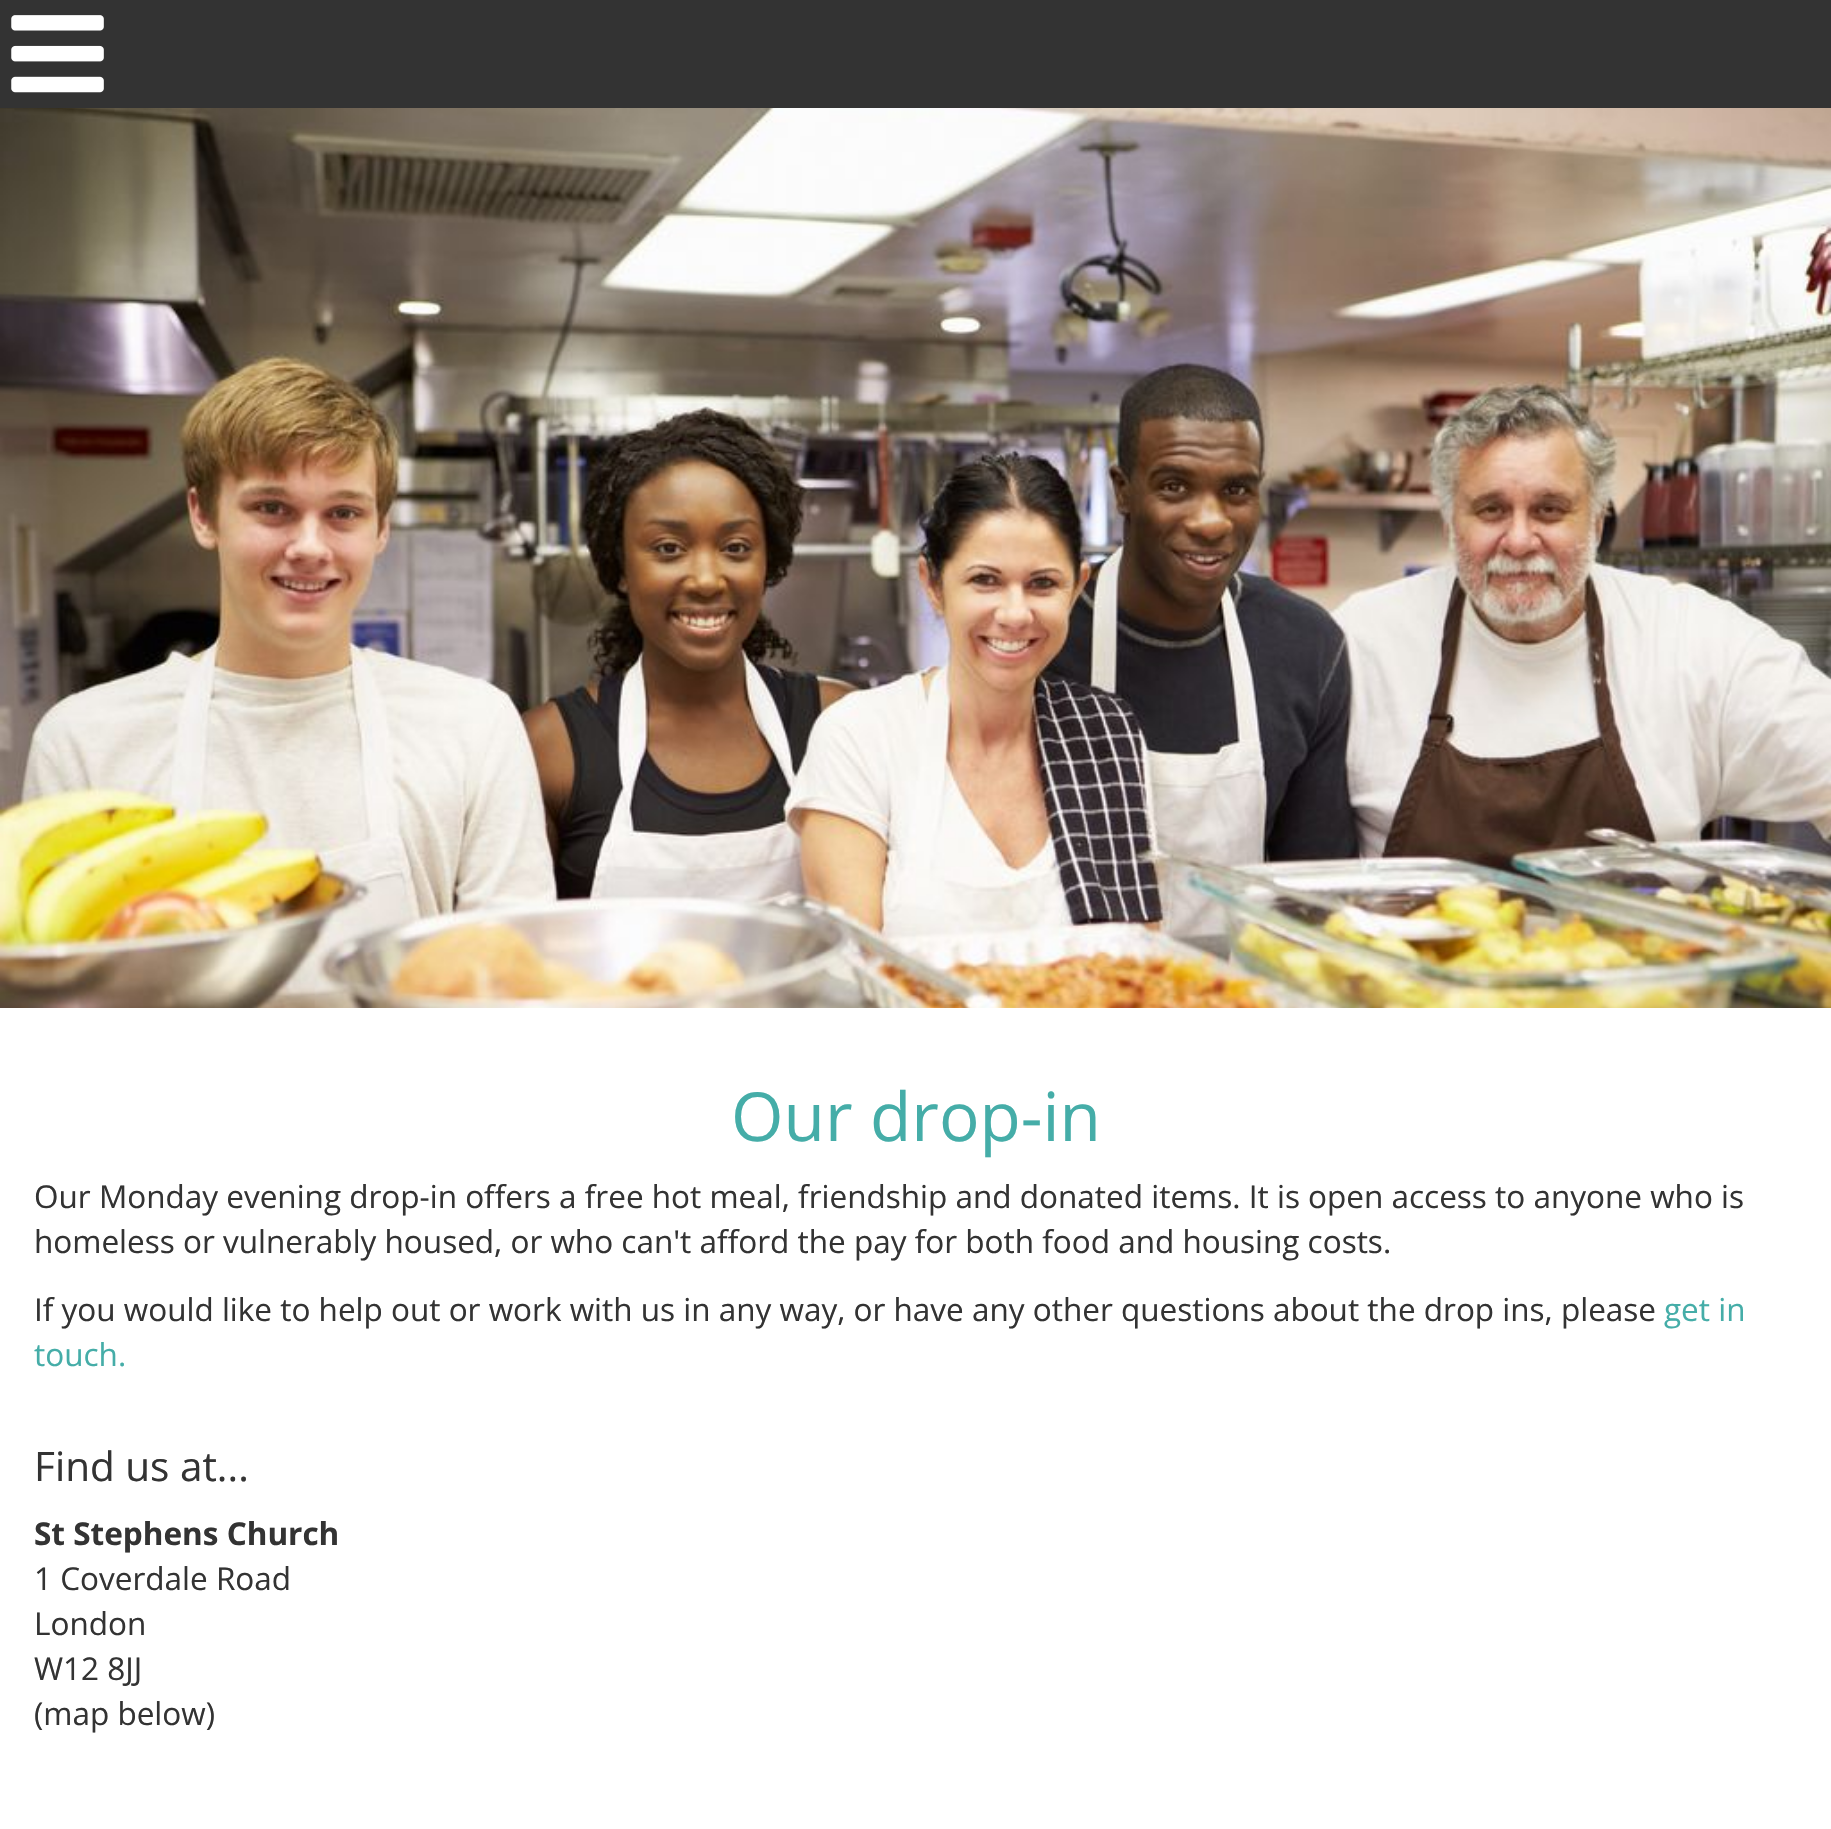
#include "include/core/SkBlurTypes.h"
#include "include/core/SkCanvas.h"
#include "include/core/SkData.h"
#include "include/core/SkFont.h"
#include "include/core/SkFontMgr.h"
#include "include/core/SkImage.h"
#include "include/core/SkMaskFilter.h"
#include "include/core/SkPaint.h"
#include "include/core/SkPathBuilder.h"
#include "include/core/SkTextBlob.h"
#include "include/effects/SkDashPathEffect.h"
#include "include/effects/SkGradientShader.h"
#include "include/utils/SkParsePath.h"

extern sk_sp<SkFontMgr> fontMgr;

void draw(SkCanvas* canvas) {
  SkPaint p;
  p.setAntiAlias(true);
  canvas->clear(SK_ColorWHITE);
  p.setColor(SkColorSetRGB(51, 51, 51));
  canvas->drawRect(SkRect::MakeLTRB(0, 0, 1831, 108), p);
  canvas->drawImageRect(SkImages::DeferredFromEncodedData(SkData::MakeFromFileName("images/1.png")), SkRect::MakeLTRB(11, 15, 104, 93), SkSamplingOptions());
  canvas->drawImageRect(SkImages::DeferredFromEncodedData(SkData::MakeFromFileName("images/2.png")), SkRect::MakeLTRB(0, 108, 1831, 1008), SkSamplingOptions());
  SkFont font1(fontMgr->matchFamilyStyle("Open Sans", SkFontStyle::Normal()), 67.5f);
  font1.setSubpixel(true);
  p.setColor(SkColorSetRGB(69, 173, 168));
  canvas->drawString("Our drop-in", 731, 1141, font1, p);
  SkFont font2(fontMgr->matchFamilyStyle("Open Sans", SkFontStyle::Normal()), 31.5f);
  font2.setSubpixel(true);
  p.setColor(SkColorSetRGB(51, 51, 51));
  canvas->drawString("Our Monday evening drop-in offers a free hot meal, friendship and donated items. It is open access to anyone who is", 34, 1208, font2, p);
  canvas->drawString("homeless or vulnerably housed, or who can't afford the pay for both food and housing costs.", 34, 1253, font2, p);
  canvas->drawString("If you would like to help out or work with us in any way, or have any other questions about the drop ins, please", 34, 1321, font2, p);
  p.setColor(SkColorSetRGB(69, 173, 168));
  canvas->drawString("get in", 1664, 1321, font2, p);
  canvas->drawString("touch.", 34, 1366, font2, p);
  SkFont font3(fontMgr->matchFamilyStyle("Open Sans", SkFontStyle::Normal()), 40.5f);
  font3.setSubpixel(true);
  p.setColor(SkColorSetRGB(51, 51, 51));
  canvas->drawString("Find us at...", 34, 1481, font3, p);
  SkFont font4(fontMgr->matchFamilyStyle("Open Sans", SkFontStyle::Bold()), 31.5f);
  font4.setSubpixel(true);
  canvas->drawString("St Stephens Church", 34, 1545, font4, p);
  canvas->drawString("1 Coverdale Road", 34, 1590, font2, p);
  canvas->drawString("London", 34, 1635, font2, p);
  canvas->drawString("W12 8JJ", 34, 1680, font2, p);
  canvas->drawString("(map below)", 34, 1725, font2, p);
}
